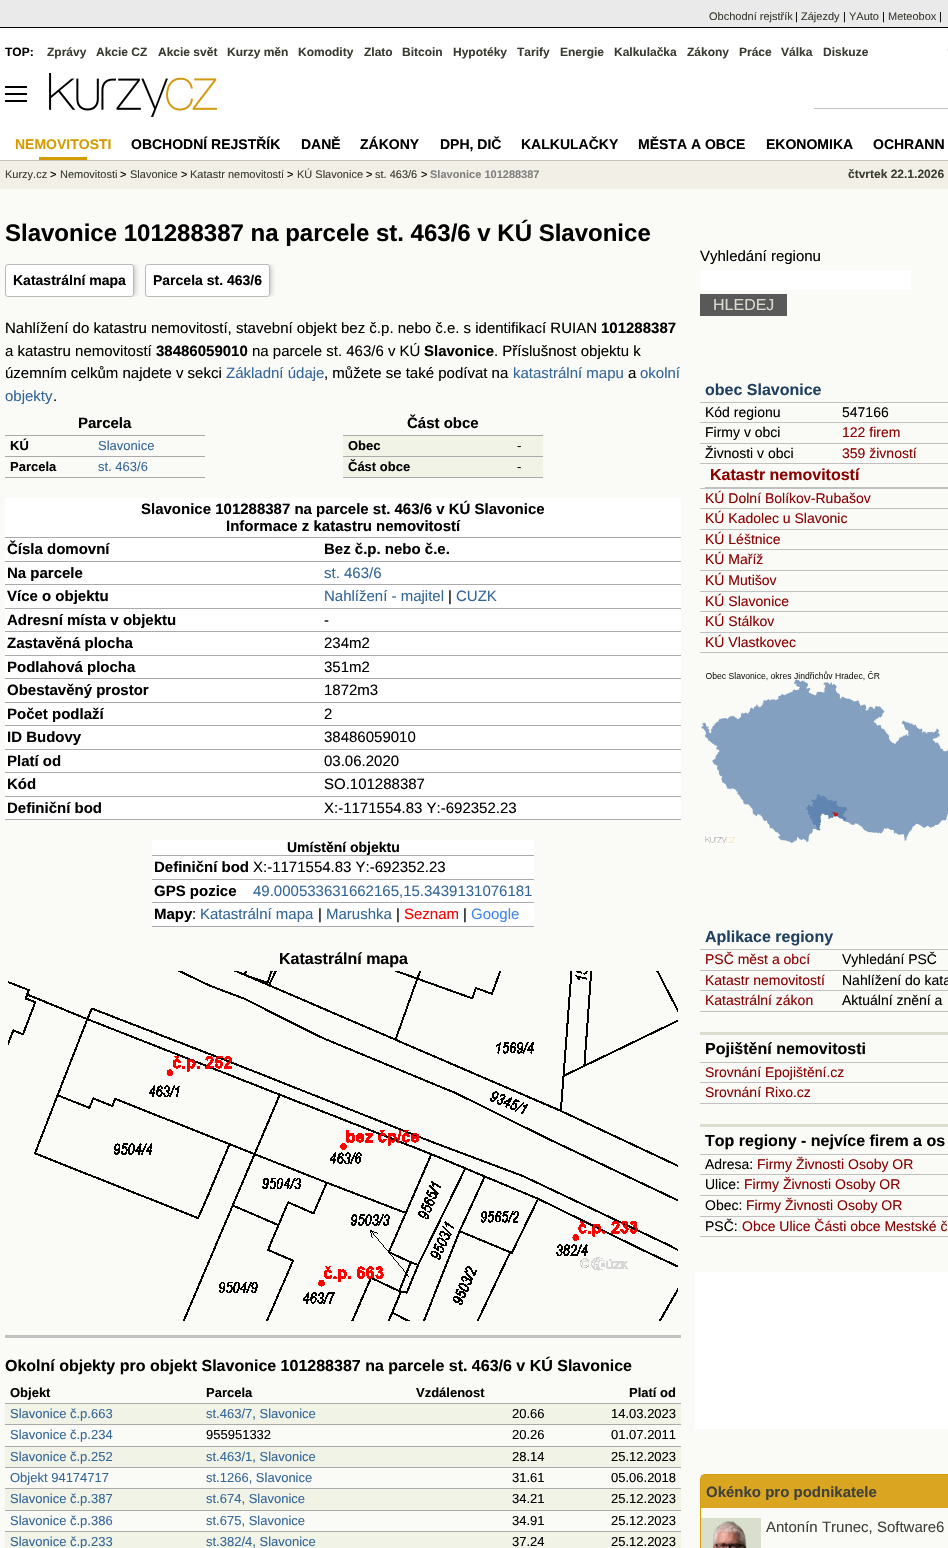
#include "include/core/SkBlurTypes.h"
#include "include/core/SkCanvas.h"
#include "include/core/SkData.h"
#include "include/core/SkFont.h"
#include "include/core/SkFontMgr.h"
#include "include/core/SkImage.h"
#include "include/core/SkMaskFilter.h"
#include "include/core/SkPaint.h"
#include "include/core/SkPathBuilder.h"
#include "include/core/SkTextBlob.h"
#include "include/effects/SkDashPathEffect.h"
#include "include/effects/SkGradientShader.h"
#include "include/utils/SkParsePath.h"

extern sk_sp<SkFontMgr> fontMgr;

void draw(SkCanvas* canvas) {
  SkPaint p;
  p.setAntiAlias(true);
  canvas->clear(SkColorSetRGB(234, 234, 234));
  p.setColor(SkColorSetRGB(250, 251, 247));
  canvas->drawRect(SkRect::MakeLTRB(0, 189, 948, 1548), p);
  p.setColor(SK_ColorBLACK);
  canvas->drawRect(SkRect::MakeLTRB(0, 27, 948, 28), p);
  p.setColor(SK_ColorWHITE);
  canvas->drawRect(SkRect::MakeLTRB(0, 28, 948, 160), p);
  p.setColor(SK_ColorBLACK);
  canvas->drawRect(SkRect::MakeLTRB(5, 86, 27, 88), p);
  canvas->drawImageRect(SkImages::DeferredFromEncodedData(SkData::MakeFromFileName("images/1.png")), SkRect::MakeLTRB(49, 73, 217, 117), SkSamplingOptions());
  canvas->drawRect(SkRect::MakeLTRB(5, 93, 27, 95), p);
  canvas->drawRect(SkRect::MakeLTRB(5, 100, 27, 102), p);
  p.setColor(SkColorSetRGB(192, 192, 192));
  canvas->drawRect(SkRect::MakeLTRB(814, 108, 948, 109), p);
  canvas->drawImageRect(SkImages::DeferredFromEncodedData(SkData::MakeFromFileName("images/2.png")), SkRect::MakeLTRB(947, 49, 948, 51), SkSamplingOptions());
  p.setColor(SkColorSetRGB(242, 239, 230));
  canvas->drawRect(SkRect::MakeLTRB(0, 161, 948, 189), p);
  canvas->save();
  canvas->clipRect(SkRect::MakeLTRB(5, 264, 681, 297));
  p.setColor(SkColorSetRGB(187, 187, 187));
  p.setMaskFilter(SkMaskFilter::MakeBlur(kNormal_SkBlurStyle, 2.5f));
  canvas->drawRoundRect(SkRect::MakeLTRB(10, 266, 135, 295), 1, 1, p);
  p.setMaskFilter(nullptr);
  canvas->restore();
  p.setColor(SK_ColorWHITE);
  canvas->drawRoundRect(SkRect::MakeLTRB(5.5f, 264.5f, 133.5f, 296.5f), 2.5f, 2.5f, p);
  p.setStyle(SkPaint::kStroke_Style);
  p.setStrokeWidth(1);
  p.setColor(SkColorSetRGB(187, 187, 187));
  canvas->drawRoundRect(SkRect::MakeLTRB(5.5f, 264.5f, 133.5f, 296.5f), 2.5f, 2.5f, p);
  canvas->save();
  canvas->clipRect(SkRect::MakeLTRB(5, 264, 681, 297));
  p.setStyle(SkPaint::kFill_Style);
  p.setMaskFilter(SkMaskFilter::MakeBlur(kNormal_SkBlurStyle, 2.5f));
  canvas->drawRoundRect(SkRect::MakeLTRB(150, 266, 271, 295), 1, 1, p);
  p.setMaskFilter(nullptr);
  canvas->restore();
  p.setColor(SK_ColorWHITE);
  canvas->drawRoundRect(SkRect::MakeLTRB(145.5f, 264.5f, 269.5f, 296.5f), 2.5f, 2.5f, p);
  p.setStyle(SkPaint::kStroke_Style);
  p.setColor(SkColorSetRGB(187, 187, 187));
  canvas->drawRoundRect(SkRect::MakeLTRB(145.5f, 264.5f, 269.5f, 296.5f), 2.5f, 2.5f, p);
  p.setStyle(SkPaint::kFill_Style);
  p.setColor(SkColorSetRGB(170, 170, 170));
  canvas->drawRect(SkRect::MakeLTRB(5, 435, 205, 436), p);
  canvas->drawRect(SkRect::MakeLTRB(5, 456, 205, 457), p);
  canvas->drawRect(SkRect::MakeLTRB(5, 477, 205, 478), p);
  canvas->drawRect(SkRect::MakeLTRB(343, 435, 543, 436), p);
  p.setColor(SkColorSetRGB(241, 243, 230));
  canvas->drawRect(SkRect::MakeLTRB(343, 436, 543, 456), p);
  p.setColor(SkColorSetRGB(170, 170, 170));
  canvas->drawRect(SkRect::MakeLTRB(343, 456, 543, 457), p);
  p.setColor(SkColorSetRGB(241, 243, 230));
  canvas->drawRect(SkRect::MakeLTRB(343, 457, 543, 477), p);
  p.setColor(SkColorSetRGB(170, 170, 170));
  canvas->drawRect(SkRect::MakeLTRB(343, 477, 543, 478), p);
  p.setColor(SK_ColorWHITE);
  canvas->drawRect(SkRect::MakeLTRB(5, 498, 681, 819), p);
  p.setColor(SkColorSetRGB(170, 170, 170));
  canvas->drawRect(SkRect::MakeLTRB(5, 537, 681, 538), p);
  canvas->drawRect(SkRect::MakeLTRB(5, 561, 681, 562), p);
  canvas->drawRect(SkRect::MakeLTRB(5, 584, 681, 585), p);
  canvas->drawRect(SkRect::MakeLTRB(5, 608, 681, 609), p);
  canvas->drawRect(SkRect::MakeLTRB(5, 631, 681, 632), p);
  canvas->drawRect(SkRect::MakeLTRB(5, 655, 681, 656), p);
  canvas->drawRect(SkRect::MakeLTRB(5, 678, 681, 679), p);
  canvas->drawRect(SkRect::MakeLTRB(5, 702, 681, 703), p);
  canvas->drawRect(SkRect::MakeLTRB(5, 725, 681, 726), p);
  canvas->drawRect(SkRect::MakeLTRB(5, 749, 681, 750), p);
  canvas->drawRect(SkRect::MakeLTRB(5, 772, 681, 773), p);
  canvas->drawRect(SkRect::MakeLTRB(5, 796, 681, 797), p);
  canvas->drawRect(SkRect::MakeLTRB(5, 819, 681, 820), p);
  p.setColor(SK_ColorWHITE);
  canvas->drawRect(SkRect::MakeLTRB(152, 840, 534, 926), p);
  p.setColor(SkColorSetRGB(170, 170, 170));
  canvas->drawRect(SkRect::MakeLTRB(152, 855, 534, 856), p);
  canvas->drawRect(SkRect::MakeLTRB(152, 879, 534, 880), p);
  canvas->drawRect(SkRect::MakeLTRB(152, 902, 534, 903), p);
  canvas->drawRect(SkRect::MakeLTRB(152, 926, 534, 927), p);
  canvas->drawImageRect(SkImages::DeferredFromEncodedData(SkData::MakeFromFileName("images/3.png")), SkRect::MakeLTRB(8, 971, 678, 1321), SkSamplingOptions());
  p.setColor(SkColorSetRGB(192, 192, 192));
  canvas->drawRect(SkRect::MakeLTRB(5, 1335, 681, 1338), p);
  p.setColor(SkColorSetRGB(170, 170, 170));
  canvas->drawRect(SkRect::MakeLTRB(5, 1403, 681, 1404), p);
  p.setColor(SkColorSetRGB(241, 243, 230));
  canvas->drawRect(SkRect::MakeLTRB(5, 1404, 681, 1424), p);
  p.setColor(SkColorSetRGB(170, 170, 170));
  canvas->drawRect(SkRect::MakeLTRB(5, 1424, 681, 1425), p);
  canvas->drawRect(SkRect::MakeLTRB(5, 1446, 681, 1447), p);
  p.setColor(SkColorSetRGB(241, 243, 230));
  canvas->drawRect(SkRect::MakeLTRB(5, 1447, 681, 1467), p);
  p.setColor(SkColorSetRGB(170, 170, 170));
  canvas->drawRect(SkRect::MakeLTRB(5, 1467, 681, 1468), p);
  canvas->drawRect(SkRect::MakeLTRB(5, 1488, 681, 1489), p);
  p.setColor(SkColorSetRGB(241, 243, 230));
  canvas->drawRect(SkRect::MakeLTRB(5, 1489, 681, 1510), p);
  p.setColor(SkColorSetRGB(170, 170, 170));
  canvas->drawRect(SkRect::MakeLTRB(5, 1510, 681, 1511), p);
  canvas->drawRect(SkRect::MakeLTRB(5, 1531, 681, 1532), p);
  p.setColor(SkColorSetRGB(241, 243, 230));
  canvas->drawRect(SkRect::MakeLTRB(5, 1532, 681, 1548), p);
  p.setColor(SK_ColorWHITE);
  canvas->drawRect(SkRect::MakeLTRB(700, 270, 911, 290), p);
  p.setColor(SkColorSetRGB(89, 89, 89));
  canvas->drawRect(SkRect::MakeLTRB(700, 294, 787, 316), p);
  p.setColor(SkColorSetRGB(192, 192, 192));
  canvas->drawRect(SkRect::MakeLTRB(700, 402, 948, 403), p);
  canvas->drawRect(SkRect::MakeLTRB(700, 422, 948, 423), p);
  canvas->drawRect(SkRect::MakeLTRB(700, 443, 948, 444), p);
  canvas->drawRect(SkRect::MakeLTRB(700, 463, 948, 464), p);
  canvas->drawRect(SkRect::MakeLTRB(700, 488, 948, 489), p);
  canvas->drawRect(SkRect::MakeLTRB(705, 487, 948, 488), p);
  canvas->drawRect(SkRect::MakeLTRB(700, 508, 948, 509), p);
  canvas->drawRect(SkRect::MakeLTRB(700, 529, 948, 530), p);
  canvas->drawRect(SkRect::MakeLTRB(700, 549, 948, 550), p);
  canvas->drawRect(SkRect::MakeLTRB(700, 570, 948, 571), p);
  canvas->drawRect(SkRect::MakeLTRB(700, 591, 948, 592), p);
  canvas->drawRect(SkRect::MakeLTRB(700, 611, 948, 612), p);
  canvas->drawRect(SkRect::MakeLTRB(700, 632, 948, 633), p);
  canvas->drawRect(SkRect::MakeLTRB(700, 652, 948, 653), p);
  canvas->drawImageRect(SkImages::DeferredFromEncodedData(SkData::MakeFromFileName("images/4.png")), SkRect::MakeLTRB(701, 671, 948, 844), SkSamplingOptions());
  canvas->drawRect(SkRect::MakeLTRB(700, 949, 948, 950), p);
  canvas->drawRect(SkRect::MakeLTRB(700, 970, 948, 971), p);
  canvas->drawRect(SkRect::MakeLTRB(700, 990, 948, 991), p);
  canvas->drawRect(SkRect::MakeLTRB(700, 1011, 948, 1012), p);
  p.setColor(SkColorSetRGB(219, 221, 206));
  canvas->drawRect(SkRect::MakeLTRB(700, 1032, 948, 1035), p);
  p.setColor(SkColorSetRGB(192, 192, 192));
  canvas->drawRect(SkRect::MakeLTRB(700, 1062, 948, 1063), p);
  canvas->drawRect(SkRect::MakeLTRB(700, 1082, 948, 1083), p);
  canvas->drawRect(SkRect::MakeLTRB(700, 1103, 948, 1104), p);
  p.setColor(SkColorSetRGB(219, 221, 206));
  canvas->drawRect(SkRect::MakeLTRB(700, 1124, 948, 1127), p);
  p.setColor(SkColorSetRGB(192, 192, 192));
  canvas->drawRect(SkRect::MakeLTRB(700, 1154, 948, 1155), p);
  canvas->drawRect(SkRect::MakeLTRB(700, 1174, 948, 1175), p);
  canvas->drawRect(SkRect::MakeLTRB(700, 1195, 948, 1196), p);
  canvas->drawRect(SkRect::MakeLTRB(700, 1216, 948, 1217), p);
  canvas->drawRect(SkRect::MakeLTRB(700, 1236, 948, 1237), p);
  p.setColor(SK_ColorWHITE);
  canvas->drawRect(SkRect::MakeLTRB(695, 1272, 948, 1429), p);
  p.setStyle(SkPaint::kStroke_Style);
  p.setColor(SkColorSetRGB(212, 156, 1));
  canvas->drawRoundRect(SkRect::MakeLTRB(700.5f, 1474.5f, 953.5f, 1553.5f), 4.5f, 4.5f, p);
  p.setStyle(SkPaint::kFill_Style);
  p.setColor(SkColorSetRGB(218, 165, 32));
  canvas->drawRect(SkRect::MakeLTRB(701, 1475, 948, 1508), p);
  canvas->drawImageRect(SkImages::DeferredFromEncodedData(SkData::MakeFromFileName("images/5.png")), SkRect::MakeLTRB(701, 1518, 761, 1548), SkSamplingOptions());
  p.setColor(SkColorSetRGB(197, 198, 189));
  canvas->drawRect(SkRect::MakeLTRB(0, 160, 948, 161), p);
  p.setColor(SkColorSetRGB(212, 156, 1));
  canvas->drawRect(SkRect::MakeLTRB(39, 157, 87, 160), p);
  SkFont font1(fontMgr->matchFamilyStyle("Liberation Sans", SkFontStyle::Normal()), 11);
  font1.setSubpixel(true);
  p.setColor(SkColorSetRGB(57, 60, 49));
  canvas->drawString("Obchodní rejstřík", 709, 20, font1, p);
  p.setColor(SK_ColorBLACK);
  canvas->drawString("|", 795, 20, font1, p);
  p.setColor(SkColorSetRGB(57, 60, 49));
  canvas->drawString("Zájezdy", 801, 20, font1, p);
  p.setColor(SK_ColorBLACK);
  canvas->drawString("|", 843, 20, font1, p);
  p.setColor(SkColorSetRGB(57, 60, 49));
  canvas->drawString("YAuto", 849, 20, font1, p);
  p.setColor(SK_ColorBLACK);
  canvas->drawString("|", 882, 20, font1, p);
  p.setColor(SkColorSetRGB(57, 60, 49));
  canvas->drawString("Meteobox", 888, 20, font1, p);
  p.setColor(SK_ColorBLACK);
  canvas->drawString("|", 939, 20, font1, p);
  SkFont font2(fontMgr->matchFamilyStyle("Liberation Sans", SkFontStyle::Bold()), 12);
  font2.setSubpixel(true);
  canvas->drawString("TOP:", 5, 56, font2, p);
  p.setColor(SkColorSetRGB(57, 60, 49));
  canvas->drawString("Zprávy", 47, 56, font2, p);
  canvas->drawString("Akcie CZ", 96, 56, font2, p);
  canvas->drawString("Akcie svět", 158, 56, font2, p);
  canvas->drawString("Kurzy měn", 227, 56, font2, p);
  canvas->drawString("Komodity", 298, 56, font2, p);
  canvas->drawString("Zlato", 364, 56, font2, p);
  canvas->drawString("Bitcoin", 402, 56, font2, p);
  canvas->drawString("Hypotéky", 453, 56, font2, p);
  canvas->drawString("Tarify", 517, 56, font2, p);
  canvas->drawString("Energie", 560, 56, font2, p);
  canvas->drawString("Kalkulačka", 614, 56, font2, p);
  canvas->drawString("Zákony", 687, 56, font2, p);
  canvas->drawString("Práce", 739, 56, font2, p);
  canvas->drawString("Válka", 781, 56, font2, p);
  canvas->drawString("Diskuze", 823, 56, font2, p);
  canvas->drawString("Kurzy.cz", 5, 178, font1, p);
  p.setColor(SK_ColorBLACK);
  canvas->drawString(">", 50, 178, font1, p);
  p.setColor(SkColorSetRGB(57, 60, 49));
  canvas->drawString("Nemovitosti", 60, 178, font1, p);
  p.setColor(SK_ColorBLACK);
  canvas->drawString(">", 120, 178, font1, p);
  p.setColor(SkColorSetRGB(57, 60, 49));
  canvas->drawString("Slavonice", 130, 178, font1, p);
  p.setColor(SK_ColorBLACK);
  canvas->drawString(">", 181, 178, font1, p);
  p.setColor(SkColorSetRGB(57, 60, 49));
  canvas->drawString("Katastr nemovitostí", 190, 178, font1, p);
  p.setColor(SK_ColorBLACK);
  canvas->drawString(">", 287, 178, font1, p);
  p.setColor(SkColorSetRGB(57, 60, 49));
  canvas->drawString("KÚ Slavonice", 297, 178, font1, p);
  p.setColor(SK_ColorBLACK);
  canvas->drawString(">", 366, 178, font1, p);
  p.setColor(SkColorSetRGB(57, 60, 49));
  canvas->drawString("st. 463/6", 375, 178, font1, p);
  p.setColor(SK_ColorBLACK);
  canvas->drawString(">", 421, 178, font1, p);
  SkFont font3(fontMgr->matchFamilyStyle("Liberation Sans", SkFontStyle::Bold()), 11);
  font3.setSubpixel(true);
  p.setColor(SkColorSetRGB(128, 128, 128));
  canvas->drawString("Slavonice 101288387", 430, 178, font3, p);
  p.setColor(SkColorSetRGB(57, 60, 49));
  canvas->drawString("čtvrtek 22.1.2026", 848, 178, font2, p);
  SkFont font4(fontMgr->matchFamilyStyle("Liberation Sans", SkFontStyle::Bold()), 24);
  font4.setSubpixel(true);
  p.setColor(SK_ColorBLACK);
  canvas->drawString("Slavonice 101288387 na parcele st. 463/6 v KÚ Slavonice", 5, 241, font4, p);
  SkFont font5(fontMgr->matchFamilyStyle("Liberation Sans", SkFontStyle::Bold()), 14);
  font5.setSubpixel(true);
  canvas->drawString("Katastrální mapa", 13, 285, font5, p);
  canvas->drawString("Parcela st. 463/6", 153, 285, font5, p);
  SkFont font6(fontMgr->matchFamilyStyle("Liberation Sans", SkFontStyle::Normal()), 15);
  font6.setSubpixel(true);
  canvas->drawString("Nahlížení do katastru nemovitostí, stavební objekt bez č.p. nebo č.e. s identifikací RUIAN", 5, 333, font6, p);
  SkFont font7(fontMgr->matchFamilyStyle("Liberation Sans", SkFontStyle::Bold()), 15);
  font7.setSubpixel(true);
  canvas->drawString("101288387", 601, 333, font7, p);
  canvas->drawString("a katastru nemovitostí", 5, 356, font6, p);
  canvas->drawString("38486059010", 156, 356, font7, p);
  canvas->drawString("na parcele st. 463/6 v KÚ", 252, 356, font6, p);
  canvas->drawString("Slavonice", 424, 356, font7, p);
  canvas->drawString(". Příslušnost objektu k", 494, 356, font6, p);
  canvas->drawString("územním celkům najdete v sekci", 5, 378, font6, p);
  p.setColor(SkColorSetRGB(51, 102, 153));
  canvas->drawString("Základní údaje", 226, 378, font6, p);
  p.setColor(SK_ColorBLACK);
  canvas->drawString(", můžete se také podívat na", 324, 378, font6, p);
  p.setColor(SkColorSetRGB(51, 102, 153));
  canvas->drawString("katastrální mapu", 513, 378, font6, p);
  p.setColor(SK_ColorBLACK);
  canvas->drawString("a", 628, 378, font6, p);
  p.setColor(SkColorSetRGB(51, 102, 153));
  canvas->drawString("okolní", 640, 378, font6, p);
  canvas->drawString("objekty", 5, 401, font6, p);
  p.setColor(SK_ColorBLACK);
  canvas->drawString(".", 53, 401, font6, p);
  canvas->drawString("Parcela", 78, 428, font7, p);
  SkFont font8(fontMgr->matchFamilyStyle("Liberation Sans", SkFontStyle::Bold()), 13);
  font8.setSubpixel(true);
  canvas->drawString("KÚ", 10, 450, font8, p);
  SkFont font9(fontMgr->matchFamilyStyle("Liberation Sans", SkFontStyle::Normal()), 13);
  font9.setSubpixel(true);
  p.setColor(SkColorSetRGB(51, 102, 153));
  canvas->drawString("Slavonice", 98, 450, font9, p);
  p.setColor(SK_ColorBLACK);
  canvas->drawString("Parcela", 10, 471, font8, p);
  p.setColor(SkColorSetRGB(51, 102, 153));
  canvas->drawString("st. 463/6", 98, 471, font9, p);
  p.setColor(SK_ColorBLACK);
  canvas->drawString("Část obce", 407, 428, font7, p);
  canvas->drawString("Obec", 348, 450, font8, p);
  canvas->drawString("-", 517, 450, font9, p);
  canvas->drawString("Část obce", 348, 471, font8, p);
  canvas->drawString("-", 517, 471, font9, p);
  canvas->drawString("Slavonice 101288387 na parcele st. 463/6 v KÚ Slavonice", 141, 514, font7, p);
  canvas->drawString("Informace z katastru nemovitostí", 226, 531, font7, p);
  canvas->drawString("Čísla domovní", 7, 554, font7, p);
  canvas->drawString("Bez č.p. nebo č.e.", 324, 554, font7, p);
  canvas->drawString("Na parcele", 7, 578, font7, p);
  p.setColor(SkColorSetRGB(51, 102, 153));
  canvas->drawString("st. 463/6", 324, 578, font6, p);
  p.setColor(SK_ColorBLACK);
  canvas->drawString("Více o objektu", 7, 601, font7, p);
  p.setColor(SkColorSetRGB(51, 102, 153));
  canvas->drawString("Nahlížení - majitel", 324, 601, font6, p);
  p.setColor(SK_ColorBLACK);
  canvas->drawString("|", 448, 601, font6, p);
  p.setColor(SkColorSetRGB(51, 102, 153));
  canvas->drawString("CUZK", 456, 601, font6, p);
  p.setColor(SK_ColorBLACK);
  canvas->drawString("Adresní místa v objektu", 7, 625, font7, p);
  canvas->drawString("-", 324, 625, font6, p);
  canvas->drawString("Zastavěná plocha", 7, 648, font7, p);
  canvas->drawString("234m2", 324, 648, font6, p);
  canvas->drawString("Podlahová plocha", 7, 672, font7, p);
  canvas->drawString("351m2", 324, 672, font6, p);
  canvas->drawString("Obestavěný prostor", 7, 695, font7, p);
  canvas->drawString("1872m3", 324, 695, font6, p);
  canvas->drawString("Počet podlaží", 7, 719, font7, p);
  canvas->drawString("2", 324, 719, font6, p);
  canvas->drawString("ID Budovy", 7, 742, font7, p);
  canvas->drawString("38486059010", 324, 742, font6, p);
  canvas->drawString("Platí od", 7, 766, font7, p);
  canvas->drawString("03.06.2020", 324, 766, font6, p);
  canvas->drawString("Kód", 7, 789, font7, p);
  canvas->drawString("SO.101288387", 324, 789, font6, p);
  canvas->drawString("Definiční bod", 7, 813, font7, p);
  canvas->drawString("X:-1171554.83 Y:-692352.23", 324, 813, font6, p);
  canvas->drawString("Umístění objektu", 287, 852, font5, p);
  canvas->drawString("Definiční bod", 154, 872, font7, p);
  canvas->drawString("X:-1171554.83 Y:-692352.23", 253, 872, font6, p);
  canvas->drawString("GPS pozice", 154, 896, font7, p);
  p.setColor(SkColorSetRGB(51, 102, 153));
  canvas->drawString("49.000533631662165,15.3439131076181", 253, 896, font6, p);
  p.setColor(SK_ColorBLACK);
  canvas->drawString("Mapy", 154, 919, font7, p);
  canvas->drawString(":", 192, 919, font6, p);
  p.setColor(SkColorSetRGB(51, 102, 153));
  canvas->drawString("Katastrální mapa", 200, 919, font6, p);
  p.setColor(SK_ColorBLACK);
  canvas->drawString("|", 318, 919, font6, p);
  p.setColor(SkColorSetRGB(51, 102, 153));
  canvas->drawString("Marushka", 326, 919, font6, p);
  p.setColor(SK_ColorBLACK);
  canvas->drawString("|", 396, 919, font6, p);
  p.setColor(SkColorSetRGB(255, 0, 0));
  canvas->drawString("Seznam", 404, 919, font6, p);
  p.setColor(SK_ColorBLACK);
  canvas->drawString("|", 463, 919, font6, p);
  p.setColor(SkColorSetRGB(66, 133, 244));
  canvas->drawString("Google", 471, 919, font6, p);
  SkFont font10(fontMgr->matchFamilyStyle("Liberation Sans", SkFontStyle::Bold()), 16);
  font10.setSubpixel(true);
  p.setColor(SK_ColorBLACK);
  canvas->drawString("Katastrální mapa", 279, 964, font10, p);
  canvas->drawString("Okolní objekty pro objekt Slavonice 101288387 na parcele st. 463/6 v KÚ Slavonice", 5, 1371, font10, p);
  canvas->drawString("Objekt", 10, 1397, font8, p);
  canvas->drawString("Parcela", 206, 1397, font8, p);
  canvas->drawString("Vzdálenost", 416, 1397, font8, p);
  canvas->drawString("Platí od", 629, 1397, font8, p);
  p.setColor(SkColorSetRGB(51, 102, 153));
  canvas->drawString("Slavonice č.p.663", 10, 1418, font9, p);
  canvas->drawString("st.463/7, Slavonice", 206, 1418, font9, p);
  p.setColor(SK_ColorBLACK);
  canvas->drawString("20.66", 512, 1418, font9, p);
  canvas->drawString("14.03.2023", 611, 1418, font9, p);
  p.setColor(SkColorSetRGB(51, 102, 153));
  canvas->drawString("Slavonice č.p.234", 10, 1439, font9, p);
  p.setColor(SK_ColorBLACK);
  canvas->drawString("955951332", 206, 1439, font9, p);
  canvas->drawString("20.26", 512, 1439, font9, p);
  canvas->drawString("01.07.2011", 611, 1439, font9, p);
  p.setColor(SkColorSetRGB(51, 102, 153));
  canvas->drawString("Slavonice č.p.252", 10, 1461, font9, p);
  canvas->drawString("st.463/1, Slavonice", 206, 1461, font9, p);
  p.setColor(SK_ColorBLACK);
  canvas->drawString("28.14", 512, 1461, font9, p);
  canvas->drawString("25.12.2023", 611, 1461, font9, p);
  p.setColor(SkColorSetRGB(51, 102, 153));
  canvas->drawString("Objekt 94174717", 10, 1482, font9, p);
  canvas->drawString("st.1266, Slavonice", 206, 1482, font9, p);
  p.setColor(SK_ColorBLACK);
  canvas->drawString("31.61", 512, 1482, font9, p);
  canvas->drawString("05.06.2018", 611, 1482, font9, p);
  p.setColor(SkColorSetRGB(51, 102, 153));
  canvas->drawString("Slavonice č.p.387", 10, 1503, font9, p);
  canvas->drawString("st.674, Slavonice", 206, 1503, font9, p);
  p.setColor(SK_ColorBLACK);
  canvas->drawString("34.21", 512, 1503, font9, p);
  canvas->drawString("25.12.2023", 611, 1503, font9, p);
  p.setColor(SkColorSetRGB(51, 102, 153));
  canvas->drawString("Slavonice č.p.386", 10, 1525, font9, p);
  canvas->drawString("st.675, Slavonice", 206, 1525, font9, p);
  p.setColor(SK_ColorBLACK);
  canvas->drawString("34.91", 512, 1525, font9, p);
  canvas->drawString("25.12.2023", 611, 1525, font9, p);
  p.setColor(SkColorSetRGB(51, 102, 153));
  canvas->drawString("Slavonice č.p.233", 10, 1546, font9, p);
  canvas->drawString("st.382/4, Slavonice", 206, 1546, font9, p);
  p.setColor(SK_ColorBLACK);
  canvas->drawString("37.24", 512, 1546, font9, p);
  canvas->drawString("25.12.2023", 611, 1546, font9, p);
  canvas->drawString("Vyhledání regionu", 700, 261, font6, p);
  SkFont font11(fontMgr->matchFamilyStyle("Liberation Sans", SkFontStyle::Normal()), 16);
  font11.setSubpixel(true);
  p.setColor(SkColorSetRGB(217, 220, 204));
  canvas->drawString("HLEDEJ", 713, 310, font11, p);
  p.setColor(SkColorSetRGB(32, 64, 96));
  canvas->drawString("obec Slavonice", 705, 395, font10, p);
  SkFont font12(fontMgr->matchFamilyStyle("Liberation Sans", SkFontStyle::Normal()), 14);
  font12.setSubpixel(true);
  p.setColor(SK_ColorBLACK);
  canvas->drawString("Kód regionu", 705, 417, font12, p);
  canvas->drawString("547166", 842, 417, font12, p);
  canvas->drawString("Firmy v obci", 705, 437, font12, p);
  p.setColor(SkColorSetRGB(139, 0, 0));
  canvas->drawString("122 firem", 842, 437, font12, p);
  p.setColor(SK_ColorBLACK);
  canvas->drawString("Živnosti v obci", 705, 458, font12, p);
  p.setColor(SkColorSetRGB(139, 0, 0));
  canvas->drawString("359 živností", 842, 458, font12, p);
  canvas->drawString("Katastr nemovitostí", 710, 480, font10, p);
  canvas->drawString("KÚ Dolní Bolíkov-Rubašov", 705, 503, font12, p);
  canvas->drawString("KÚ Kadolec u Slavonic", 705, 523, font12, p);
  canvas->drawString("KÚ Léštnice", 705, 544, font12, p);
  canvas->drawString("KÚ Maříž", 705, 564, font12, p);
  canvas->drawString("KÚ Mutišov", 705, 585, font12, p);
  canvas->drawString("KÚ Slavonice", 705, 606, font12, p);
  canvas->drawString("KÚ Stálkov", 705, 626, font12, p);
  canvas->drawString("KÚ Vlastkovec", 705, 647, font12, p);
  p.setColor(SkColorSetRGB(32, 64, 96));
  canvas->drawString("Aplikace regiony", 705, 942, font10, p);
  p.setColor(SkColorSetRGB(139, 0, 0));
  canvas->drawString("PSČ měst a obcí", 705, 964, font12, p);
  p.setColor(SK_ColorBLACK);
  canvas->drawString("Vyhledání PSČ", 842, 964, font12, p);
  p.setColor(SkColorSetRGB(139, 0, 0));
  canvas->drawString("Katastr nemovitostí", 705, 985, font12, p);
  p.setColor(SK_ColorBLACK);
  canvas->drawString("Nahlížení do kata", 842, 985, font12, p);
  p.setColor(SkColorSetRGB(139, 0, 0));
  canvas->drawString("Katastrální zákon", 705, 1005, font12, p);
  p.setColor(SK_ColorBLACK);
  canvas->drawString("Aktuální znění a", 842, 1005, font12, p);
  canvas->drawString("Pojištění nemovitosti", 705, 1054, font10, p);
  p.setColor(SkColorSetRGB(139, 0, 0));
  canvas->drawString("Srovnání Epojištění.cz", 705, 1077, font12, p);
  canvas->drawString("Srovnání Rixo.cz", 705, 1097, font12, p);
  p.setColor(SK_ColorBLACK);
  canvas->drawString("Top regiony - nejvíce firem a os", 705, 1146, font10, p);
  canvas->drawString("Adresa:", 705, 1169, font12, p);
  p.setColor(SkColorSetRGB(139, 0, 0));
  canvas->drawString("Firmy Živnosti Osoby OR", 757, 1169, font12, p);
  p.setColor(SK_ColorBLACK);
  canvas->drawString("Ulice:", 705, 1189, font12, p);
  p.setColor(SkColorSetRGB(139, 0, 0));
  canvas->drawString("Firmy Živnosti Osoby OR", 744, 1189, font12, p);
  p.setColor(SK_ColorBLACK);
  canvas->drawString("Obec:", 705, 1210, font12, p);
  p.setColor(SkColorSetRGB(139, 0, 0));
  canvas->drawString("Firmy Živnosti Osoby OR", 746, 1210, font12, p);
  p.setColor(SK_ColorBLACK);
  canvas->drawString("PSČ:", 705, 1231, font12, p);
  p.setColor(SkColorSetRGB(139, 0, 0));
  canvas->drawString("Obce Ulice Části obce Mestské č", 742, 1231, font12, p);
  p.setColor(SkColorSetRGB(64, 65, 59));
  canvas->drawString("Okénko pro podnikatele", 706, 1497, font7, p);
  canvas->drawString("Antonín Trunec, Software6", 766, 1532, font6, p);
  p.setColor(SkColorSetRGB(212, 156, 1));
  canvas->drawString("NEMOVITOSTI", 15, 149, font5, p);
  p.setColor(SK_ColorBLACK);
  canvas->drawString("OBCHODNÍ REJSTŘÍK", 131, 149, font5, p);
  canvas->drawString("DANĚ", 301, 149, font5, p);
  canvas->drawString("ZÁKONY", 360, 149, font5, p);
  canvas->drawString("DPH, DIČ", 440, 149, font5, p);
  canvas->drawString("KALKULAČKY", 521, 149, font5, p);
  canvas->drawString("MĚSTA A OBCE", 638, 149, font5, p);
  canvas->drawString("EKONOMIKA", 766, 149, font5, p);
  canvas->drawString("OCHRANN", 873, 149, font5, p);
}
